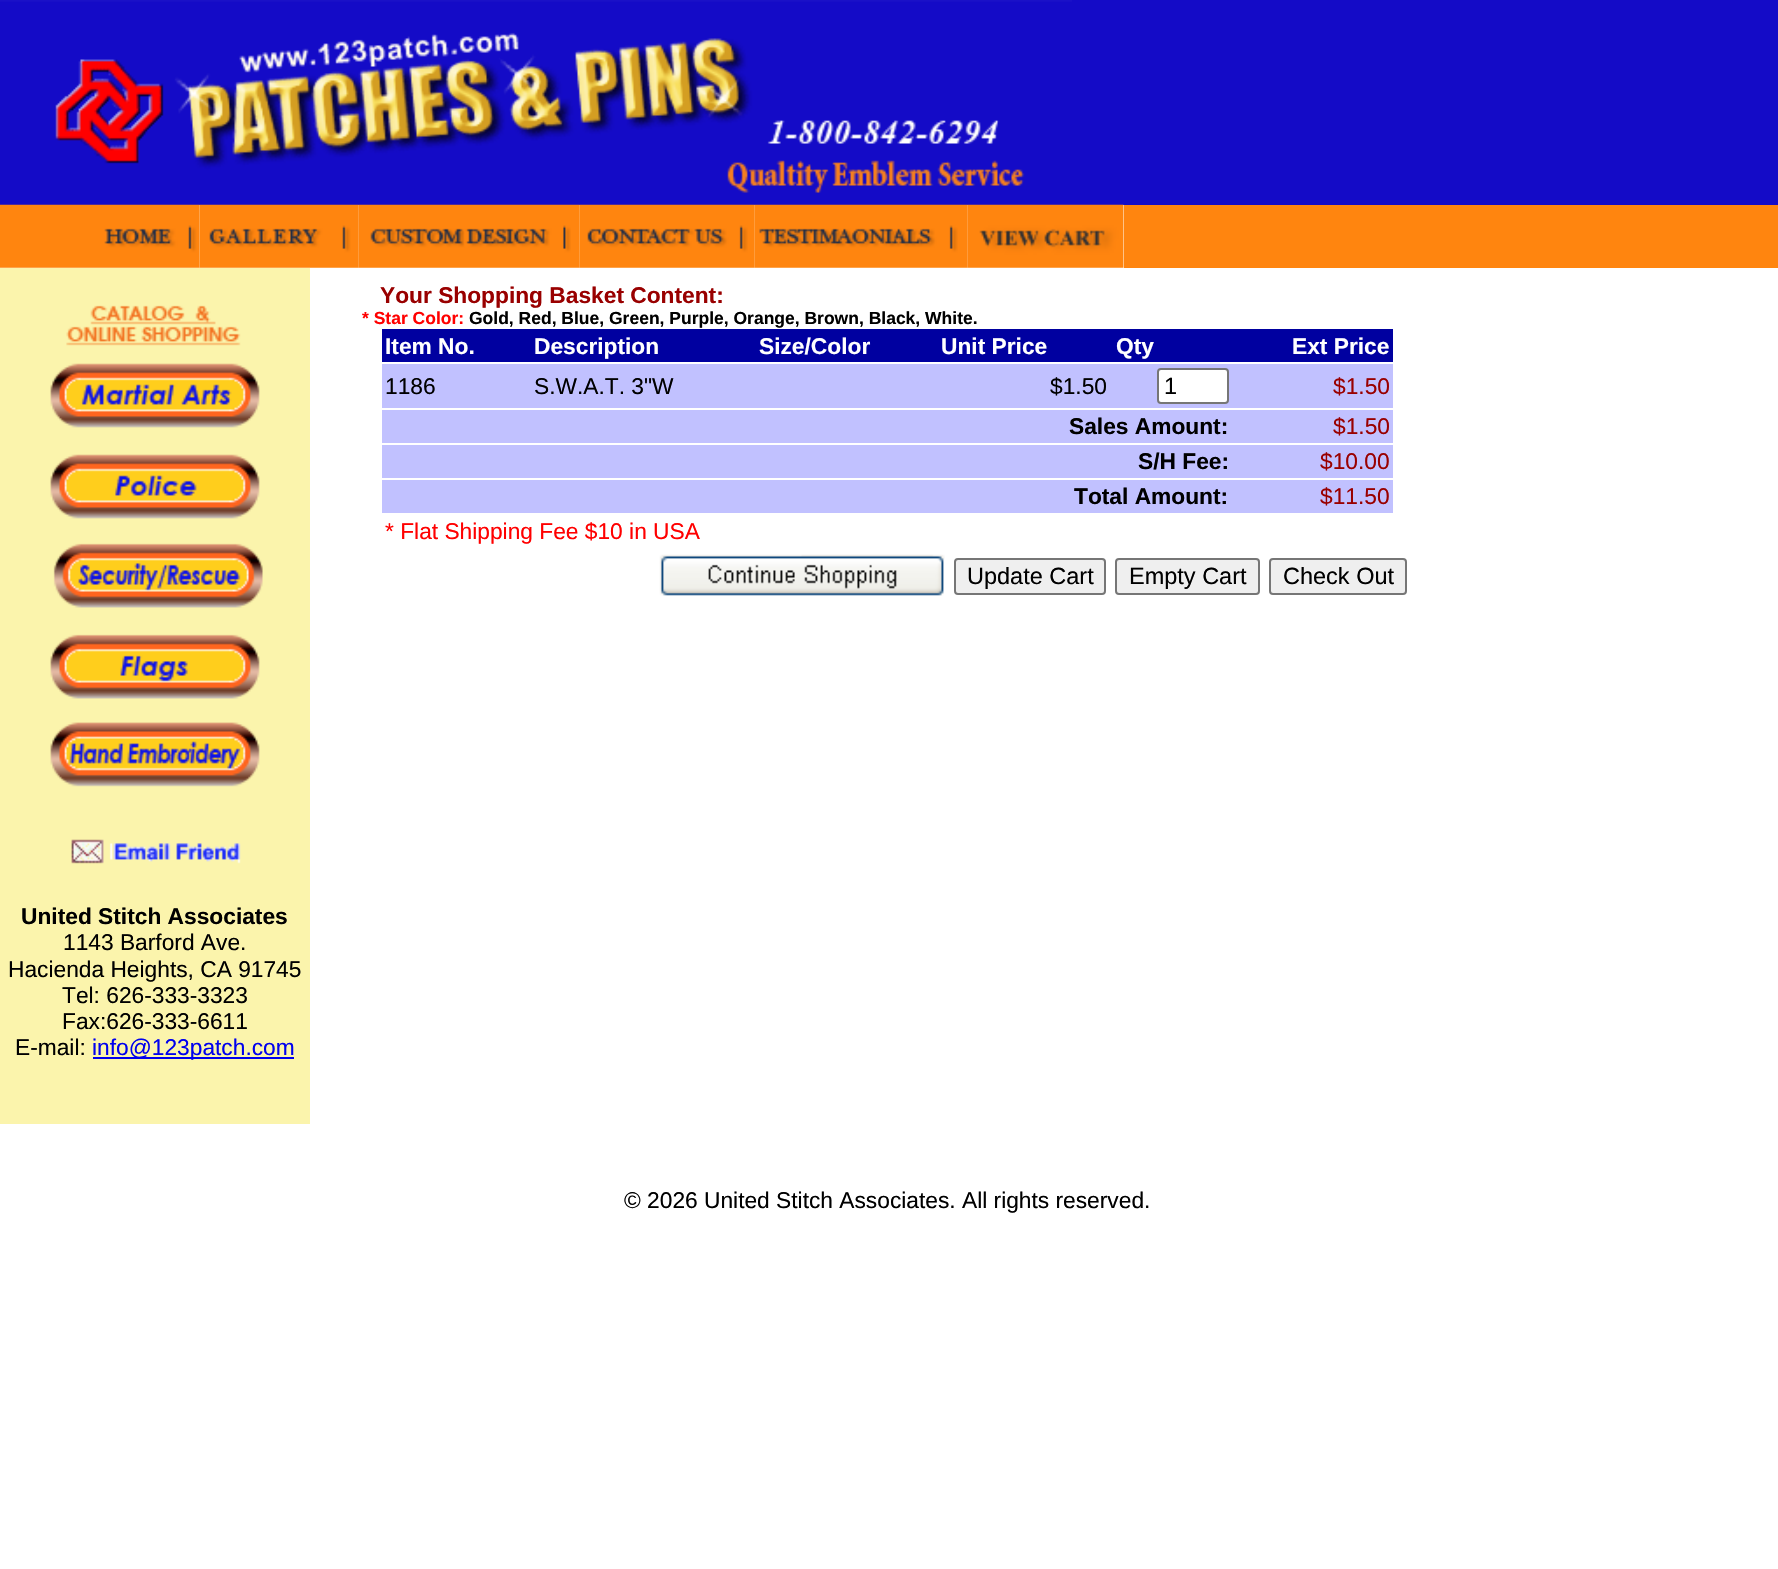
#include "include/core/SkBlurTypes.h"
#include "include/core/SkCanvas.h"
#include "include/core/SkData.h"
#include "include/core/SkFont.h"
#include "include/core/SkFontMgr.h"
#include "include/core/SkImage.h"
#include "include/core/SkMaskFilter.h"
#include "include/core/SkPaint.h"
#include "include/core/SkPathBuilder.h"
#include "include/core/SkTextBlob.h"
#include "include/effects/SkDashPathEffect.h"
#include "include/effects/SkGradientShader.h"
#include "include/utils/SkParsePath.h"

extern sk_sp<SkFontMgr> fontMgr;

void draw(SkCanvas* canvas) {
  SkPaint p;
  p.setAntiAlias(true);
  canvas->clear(SK_ColorWHITE);
  p.setColor(SkColorSetRGB(20, 11, 199));
  canvas->drawRect(SkRect::MakeLTRB(0, 0, 1778, 205), p);
  canvas->drawImageRect(SkImages::DeferredFromEncodedData(SkData::MakeFromFileName("images/1.png")), SkRect::MakeLTRB(0, 0, 1072, 193), SkSamplingOptions());
  canvas->drawImageRect(SkImages::DeferredFromEncodedData(SkData::MakeFromFileName("images/2.png")), SkRect::MakeLTRB(0, 204, 200, 268), SkSamplingOptions());
  canvas->drawImageRect(SkImages::DeferredFromEncodedData(SkData::MakeFromFileName("images/3.png")), SkRect::MakeLTRB(199, 204, 359, 268), SkSamplingOptions());
  canvas->drawImageRect(SkImages::DeferredFromEncodedData(SkData::MakeFromFileName("images/4.png")), SkRect::MakeLTRB(358, 204, 580, 268), SkSamplingOptions());
  canvas->drawImageRect(SkImages::DeferredFromEncodedData(SkData::MakeFromFileName("images/5.png")), SkRect::MakeLTRB(579, 204, 755, 268), SkSamplingOptions());
  canvas->drawImageRect(SkImages::DeferredFromEncodedData(SkData::MakeFromFileName("images/6.png")), SkRect::MakeLTRB(754, 204, 968, 268), SkSamplingOptions());
  canvas->drawImageRect(SkImages::DeferredFromEncodedData(SkData::MakeFromFileName("images/7.png")), SkRect::MakeLTRB(967, 204, 1124, 268), SkSamplingOptions());
  p.setColor(SkColorSetRGB(255, 133, 15));
  canvas->drawRect(SkRect::MakeLTRB(1124, 205, 1778, 268), p);
  p.setColor(SkColorSetRGB(0, 0, 160));
  canvas->drawRect(SkRect::MakeLTRB(382, 329, 1393, 362), p);
  p.setColor(SkColorSetRGB(193, 193, 255));
  canvas->drawRect(SkRect::MakeLTRB(382, 364, 1393, 408), p);
  p.setColor(SK_ColorWHITE);
  canvas->drawRoundRect(SkRect::MakeLTRB(1158, 369, 1228, 403), 3, 3, p);
  p.setStyle(SkPaint::kStroke_Style);
  p.setStrokeWidth(2);
  p.setColor(SkColorSetRGB(118, 118, 118));
  canvas->drawRoundRect(SkRect::MakeLTRB(1158, 369, 1228, 403), 3, 3, p);
  p.setStyle(SkPaint::kFill_Style);
  p.setColor(SkColorSetRGB(193, 193, 255));
  canvas->drawRect(SkRect::MakeLTRB(382, 410, 1393, 443), p);
  canvas->drawRect(SkRect::MakeLTRB(382, 445, 1393, 478), p);
  canvas->drawRect(SkRect::MakeLTRB(382, 480, 1393, 513), p);
  canvas->drawImageRect(SkImages::DeferredFromEncodedData(SkData::MakeFromFileName("images/8.png")), SkRect::MakeLTRB(659, 554, 945, 596), SkSamplingOptions());
  p.setColor(SkColorSetRGB(239, 239, 239));
  canvas->drawRoundRect(SkRect::MakeLTRB(955, 559, 1105, 594), 3, 3, p);
  p.setStyle(SkPaint::kStroke_Style);
  p.setColor(SkColorSetRGB(118, 118, 118));
  canvas->drawRoundRect(SkRect::MakeLTRB(955, 559, 1105, 594), 3, 3, p);
  p.setStyle(SkPaint::kFill_Style);
  p.setColor(SkColorSetRGB(239, 239, 239));
  canvas->drawRoundRect(SkRect::MakeLTRB(1116, 559, 1259, 594), 3, 3, p);
  p.setStyle(SkPaint::kStroke_Style);
  p.setColor(SkColorSetRGB(118, 118, 118));
  canvas->drawRoundRect(SkRect::MakeLTRB(1116, 559, 1259, 594), 3, 3, p);
  p.setStyle(SkPaint::kFill_Style);
  p.setColor(SkColorSetRGB(239, 239, 239));
  canvas->drawRoundRect(SkRect::MakeLTRB(1270, 559, 1406, 594), 3, 3, p);
  p.setStyle(SkPaint::kStroke_Style);
  p.setColor(SkColorSetRGB(118, 118, 118));
  canvas->drawRoundRect(SkRect::MakeLTRB(1270, 559, 1406, 594), 3, 3, p);
  p.setStyle(SkPaint::kFill_Style);
  p.setColor(SkColorSetRGB(251, 244, 172));
  canvas->drawRect(SkRect::MakeLTRB(0, 268, 310, 1124), p);
  canvas->drawImageRect(SkImages::DeferredFromEncodedData(SkData::MakeFromFileName("images/9.png")), SkRect::MakeLTRB(66, 305, 241, 346), SkSamplingOptions());
  canvas->drawImageRect(SkImages::DeferredFromEncodedData(SkData::MakeFromFileName("images/10.png")), SkRect::MakeLTRB(50, 363, 260, 428), SkSamplingOptions());
  canvas->drawImageRect(SkImages::DeferredFromEncodedData(SkData::MakeFromFileName("images/11.png")), SkRect::MakeLTRB(50, 454, 260, 519), SkSamplingOptions());
  canvas->drawImageRect(SkImages::DeferredFromEncodedData(SkData::MakeFromFileName("images/12.png")), SkRect::MakeLTRB(53, 543, 263, 608), SkSamplingOptions());
  canvas->drawImageRect(SkImages::DeferredFromEncodedData(SkData::MakeFromFileName("images/13.png")), SkRect::MakeLTRB(50, 634, 260, 699), SkSamplingOptions());
  canvas->drawImageRect(SkImages::DeferredFromEncodedData(SkData::MakeFromFileName("images/14.png")), SkRect::MakeLTRB(50, 722, 260, 787), SkSamplingOptions());
  canvas->drawImageRect(SkImages::DeferredFromEncodedData(SkData::MakeFromFileName("images/15.png")), SkRect::MakeLTRB(71, 839, 241, 864), SkSamplingOptions());
  p.setColor(SkColorSetRGB(0, 0, 238));
  canvas->drawRect(SkRect::MakeLTRB(93, 1057, 294, 1059), p);
  SkFont font1(fontMgr->matchFamilyStyle("Liberation Sans", SkFontStyle::Bold()), 22.75f);
  font1.setSubpixel(true);
  p.setColor(SkColorSetRGB(153, 0, 0));
  canvas->drawString("Your Shopping Basket Content:", 380, 303, font1, p);
  SkFont font2(fontMgr->matchFamilyStyle("Liberation Sans", SkFontStyle::Bold()), 17.5f);
  font2.setSubpixel(true);
  p.setColor(SkColorSetRGB(255, 0, 0));
  canvas->drawString("* Star Color:", 362, 324, font2, p);
  p.setColor(SK_ColorBLACK);
  canvas->drawString("Gold, Red, Blue, Green, Purple, Orange, Brown, Black, White.", 469, 324, font2, p);
  p.setColor(SK_ColorWHITE);
  canvas->drawString("Item No.", 385, 354, font1, p);
  canvas->drawString("Description", 534, 354, font1, p);
  canvas->drawString("Size/Color", 759, 354, font1, p);
  canvas->drawString("Unit Price", 941, 354, font1, p);
  canvas->drawString("Qty", 1116, 354, font1, p);
  canvas->drawString("Ext Price", 1292, 354, font1, p);
  SkFont font3(fontMgr->matchFamilyStyle("Liberation Sans", SkFontStyle::Normal()), 22.75f);
  font3.setSubpixel(true);
  p.setColor(SK_ColorBLACK);
  canvas->drawString("1186", 385, 394, font3, p);
  canvas->drawString("S.W.A.T. 3\"W", 534, 394, font3, p);
  canvas->drawString("$1.50", 1050, 394, font3, p);
  SkFont font4(fontMgr->matchFamilyStyle("Liberation Sans", SkFontStyle::Normal()), 23.5f);
  font4.setSubpixel(true);
  canvas->drawString("1", 1164, 394, font4, p);
  p.setColor(SkColorSetRGB(153, 0, 0));
  canvas->drawString("$1.50", 1333, 394, font3, p);
  p.setColor(SK_ColorBLACK);
  canvas->drawString("Sales Amount:", 1069, 434, font1, p);
  p.setColor(SkColorSetRGB(153, 0, 0));
  canvas->drawString("$1.50", 1333, 434, font3, p);
  p.setColor(SK_ColorBLACK);
  canvas->drawString("S/H Fee:", 1138, 469, font1, p);
  p.setColor(SkColorSetRGB(153, 0, 0));
  canvas->drawString("$10.00", 1320, 469, font3, p);
  p.setColor(SK_ColorBLACK);
  canvas->drawString("Total Amount:", 1074, 504, font1, p);
  p.setColor(SkColorSetRGB(153, 0, 0));
  canvas->drawString("$11.50", 1320, 504, font3, p);
  p.setColor(SkColorSetRGB(255, 0, 0));
  canvas->drawString("* Flat Shipping Fee $10 in USA", 385, 539, font3, p);
  p.setColor(SK_ColorBLACK);
  canvas->drawString("Update Cart", 967, 584, font4, p);
  canvas->drawString("Empty Cart", 1129, 584, font4, p);
  canvas->drawString("Check Out", 1283, 584, font4, p);
  canvas->drawString("United Stitch Associates", 21, 924, font1, p);
  canvas->drawString("1143 Barford Ave.", 63, 950, font3, p);
  canvas->drawString("Hacienda Heights, CA 91745", 8, 977, font3, p);
  canvas->drawString("Tel: 626-333-3323", 62, 1003, font3, p);
  canvas->drawString("Fax:626-333-6611", 62, 1029, font3, p);
  canvas->drawString("E-mail:", 15, 1055, font3, p);
  p.setColor(SkColorSetRGB(0, 0, 238));
  canvas->drawString("info@123patch.com", 92, 1055, font3, p);
  p.setColor(SK_ColorBLACK);
  canvas->drawString("© 2026 United Stitch Associates. All rights reserved.", 624, 1208, font3, p);
}
